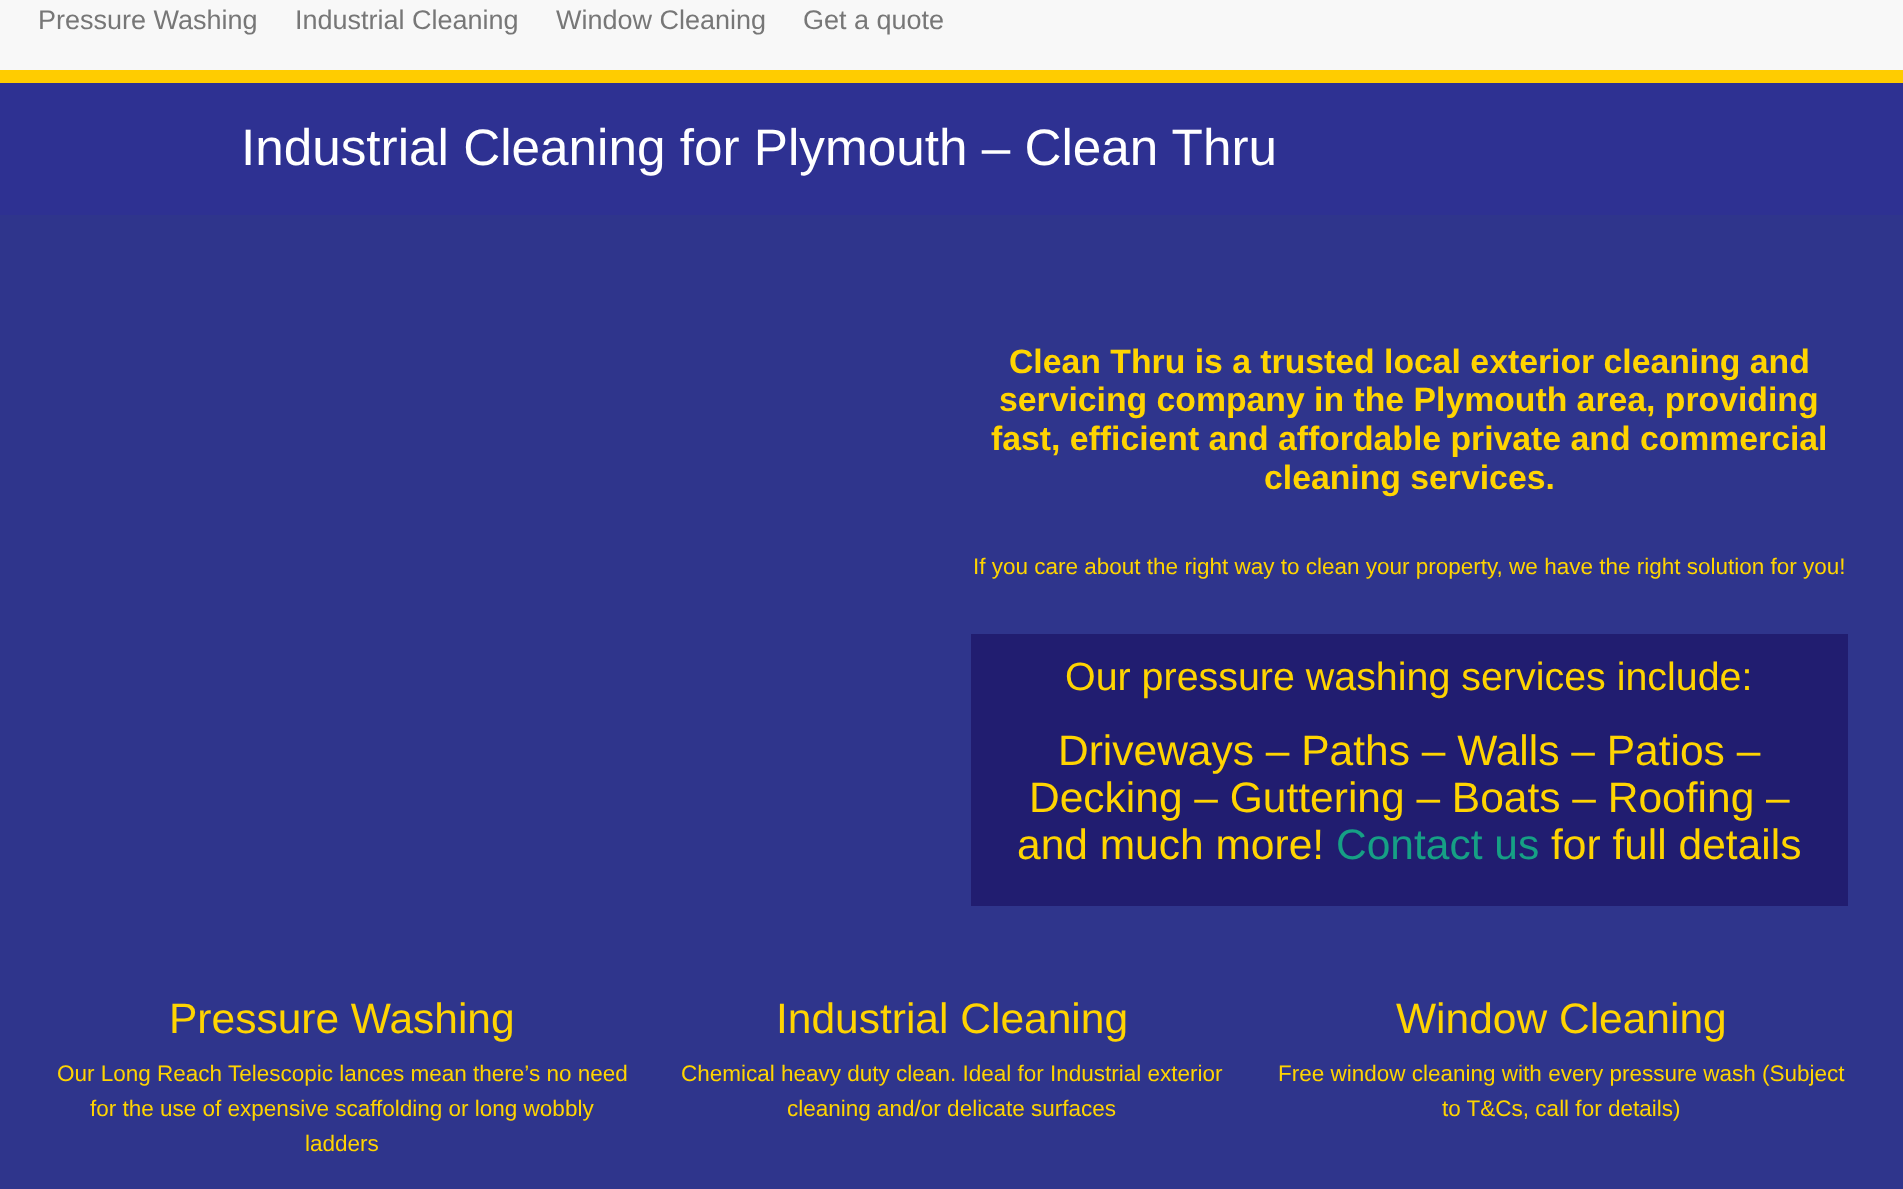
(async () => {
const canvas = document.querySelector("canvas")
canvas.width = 1903
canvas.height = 1189
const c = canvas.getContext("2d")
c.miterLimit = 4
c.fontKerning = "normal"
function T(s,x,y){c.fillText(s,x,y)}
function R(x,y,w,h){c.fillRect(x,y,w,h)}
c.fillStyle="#2f358c"
R(0,0,1903,1189)
c.fillStyle="#f8f8f8"
R(0,0,1903,70)
c.fillStyle="#fc0"
R(0,70,1903,13)
c.font="27px Liberation Sans"
c.fillStyle="#777"
T("Pressure Washing",38,29)
T("Industrial Cleaning",295,29)
T("Window Cleaning",556,29)
T("Get a quote",803,29)
c.fillStyle="#2e3192"
R(0,83,1903,132)
c.font="51.25px Liberation Sans"
c.fillStyle="#fff"
T("Industrial Cleaning for Plymouth – Clean Thru",241,165)
c.font="bold 33.75px Liberation Sans"
c.fillStyle="#ffd401"
T("Clean Thru is a trusted local exterior cleaning and",1009,373)
T("servicing company in the Plymouth area, providing",999,411)
T("fast, efficient and affordable private and commercial",991,450)
T("cleaning services.",1264,489)
c.font="22.5px Liberation Sans"
T("If you care about the right way to clean your property, we have the right solution for you!",973,574)
c.fillStyle="#211d70"
R(971,634,877,272)
c.font="39.4px Liberation Sans"
c.fillStyle="#ffd401"
T("Our pressure washing services include:",1065,690)
c.font="42.5px Liberation Sans"
T("Driveways – Paths – Walls – Patios –",1058,765)
T("Decking – Guttering – Boats – Roofing –",1029,812)
T("and much more!",1017,859)
c.fillStyle="#16a085"
T("Contact us",1336,859)
c.fillStyle="#ffd401"
T("for full details",1551,859)
T("Pressure Washing",169,1033)
c.font="22.5px Liberation Sans"
T("Our Long Reach Telescopic lances mean there’s no need",57,1081)
T("for the use of expensive scaffolding or long wobbly",90,1116)
T("ladders",305,1151)
c.font="42.5px Liberation Sans"
T("Industrial Cleaning",776,1033)
c.font="22.5px Liberation Sans"
T("Chemical heavy duty clean. Ideal for Industrial exterior",681,1081)
T("cleaning and/or delicate surfaces",787,1116)
c.font="42.5px Liberation Sans"
T("Window Cleaning",1396,1033)
c.font="22.5px Liberation Sans"
T("Free window cleaning with every pressure wash (Subject",1278,1081)
T("to T&Cs, call for details)",1442,1116)
})()
